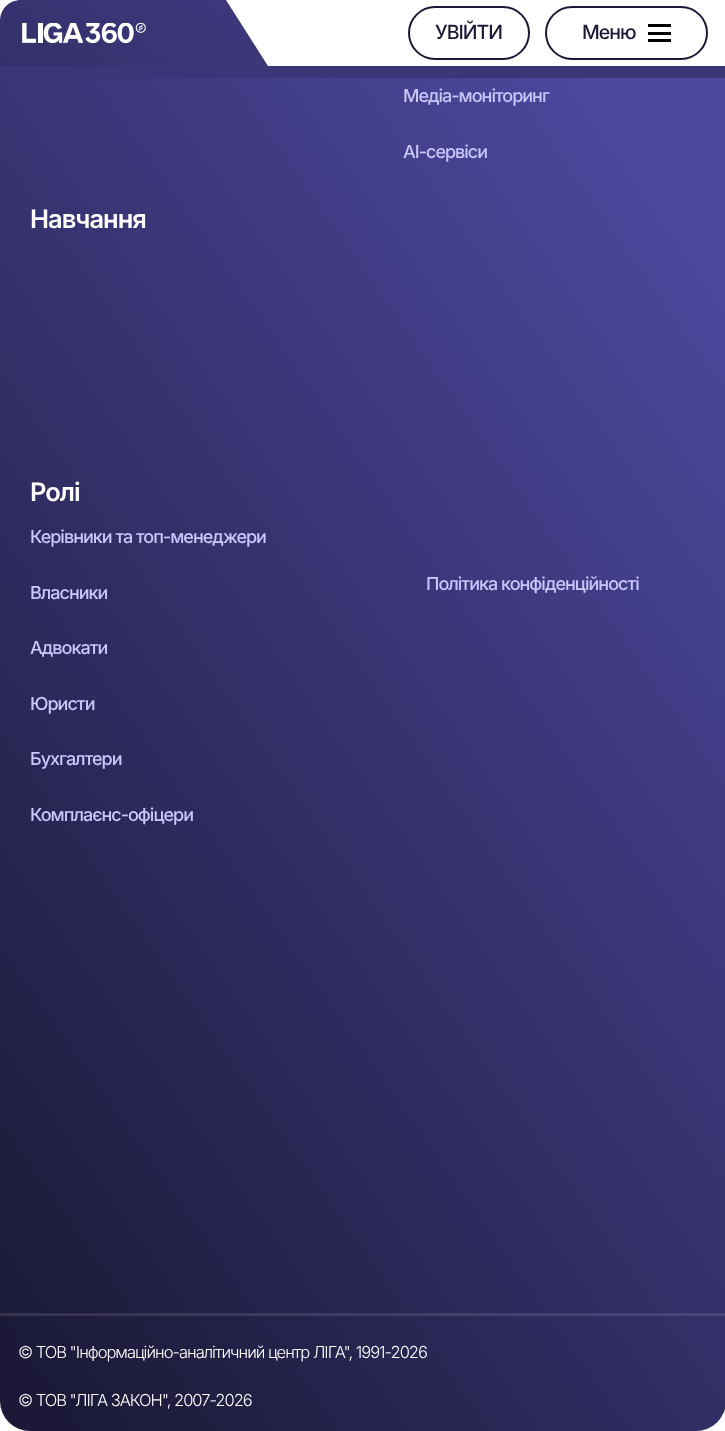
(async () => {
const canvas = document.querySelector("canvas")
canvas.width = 725
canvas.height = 1431
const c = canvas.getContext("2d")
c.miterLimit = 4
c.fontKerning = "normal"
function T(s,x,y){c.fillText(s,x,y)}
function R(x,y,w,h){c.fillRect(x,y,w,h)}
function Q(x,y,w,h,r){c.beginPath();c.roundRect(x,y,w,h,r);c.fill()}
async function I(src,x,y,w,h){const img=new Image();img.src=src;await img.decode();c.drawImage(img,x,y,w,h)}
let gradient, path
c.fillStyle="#fff"
R(0,0,725,1431)
gradient = c.createLinearGradient(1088,-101,-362,914)
gradient.addColorStop(.29,"#4d479d")
gradient.addColorStop(.97,"#1b1937")
c.fillStyle = gradient
Q(0,-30,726,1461,30)
c.fillStyle="#fff"
R(0,0,725,66)
gradient = c.createLinearGradient(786,-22,173,845)
gradient.addColorStop(0,"#4d479d")
gradient.addColorStop(1,"#1b1937")
c.fillStyle = gradient
path = new Path2D("M21 0c-12 0-21 9-21 21v45h268l-42-66z")
c.fill(path)
c.fillStyle="#3c3679"
R(0,66,725,12)
await I("1.png",22,23,124,21)
c.beginPath()
c.roundRect(409,7,120,52,26)
c.strokeStyle="#1b1937"
c.lineWidth=2
c.stroke()
c.letterSpacing="-1px"
c.font="500 19.5px Inter"
c.fillStyle="#1b1937"
T("УВІЙТИ",435,39)
c.beginPath()
c.roundRect(546,7,161,52,26)
c.stroke()
T("Меню",582,39)
c.fillStyle="#000"
R(648,32,23,3)
R(648,24,23,3)
R(648,39,23,3)
gradient = c.createLinearGradient(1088,-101,-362,914)
gradient.addColorStop(.29,"#5f5aa5")
gradient.addColorStop(.97,"#34324c")
c.fillStyle = gradient
R(0,1313,725,3)
c.font="500 18px Inter"
c.fillStyle="#cac7ff"
T("Медіа-моніторинг",403,102)
T("АІ-сервіси",403,158)
c.font="600 25.5px Inter"
c.fillStyle="#fff"
T("Навчання",30,228)
T("Ролі",30,501)
c.font="500 18px Inter"
c.fillStyle="#cac7ff"
T("Керівники та топ-менеджери",30,543)
T("Власники",30,599)
T("Адвокати",30,654)
T("Юристи",30,710)
T("Бухгалтери",30,765)
T("Комплаєнс-офіцери",30,821)
T("Політика конфіденційності",426,590)
c.save()
path = new Path2D("M18 1330.5h409.5v33.5h-409.5z")
c.clip(path)
c.font="300 16.5px Inter"
c.fillStyle="#fff"
T("© ТОВ \"Інформаційно-аналітичний центр ЛІГА\", 1991-2026",18,1358)
c.restore()
c.font="300 16.5px Inter"
c.fillStyle="#fff"
T("© ТОВ \"ЛІГА ЗАКОН\", 2007-2026",18,1406)
})()
